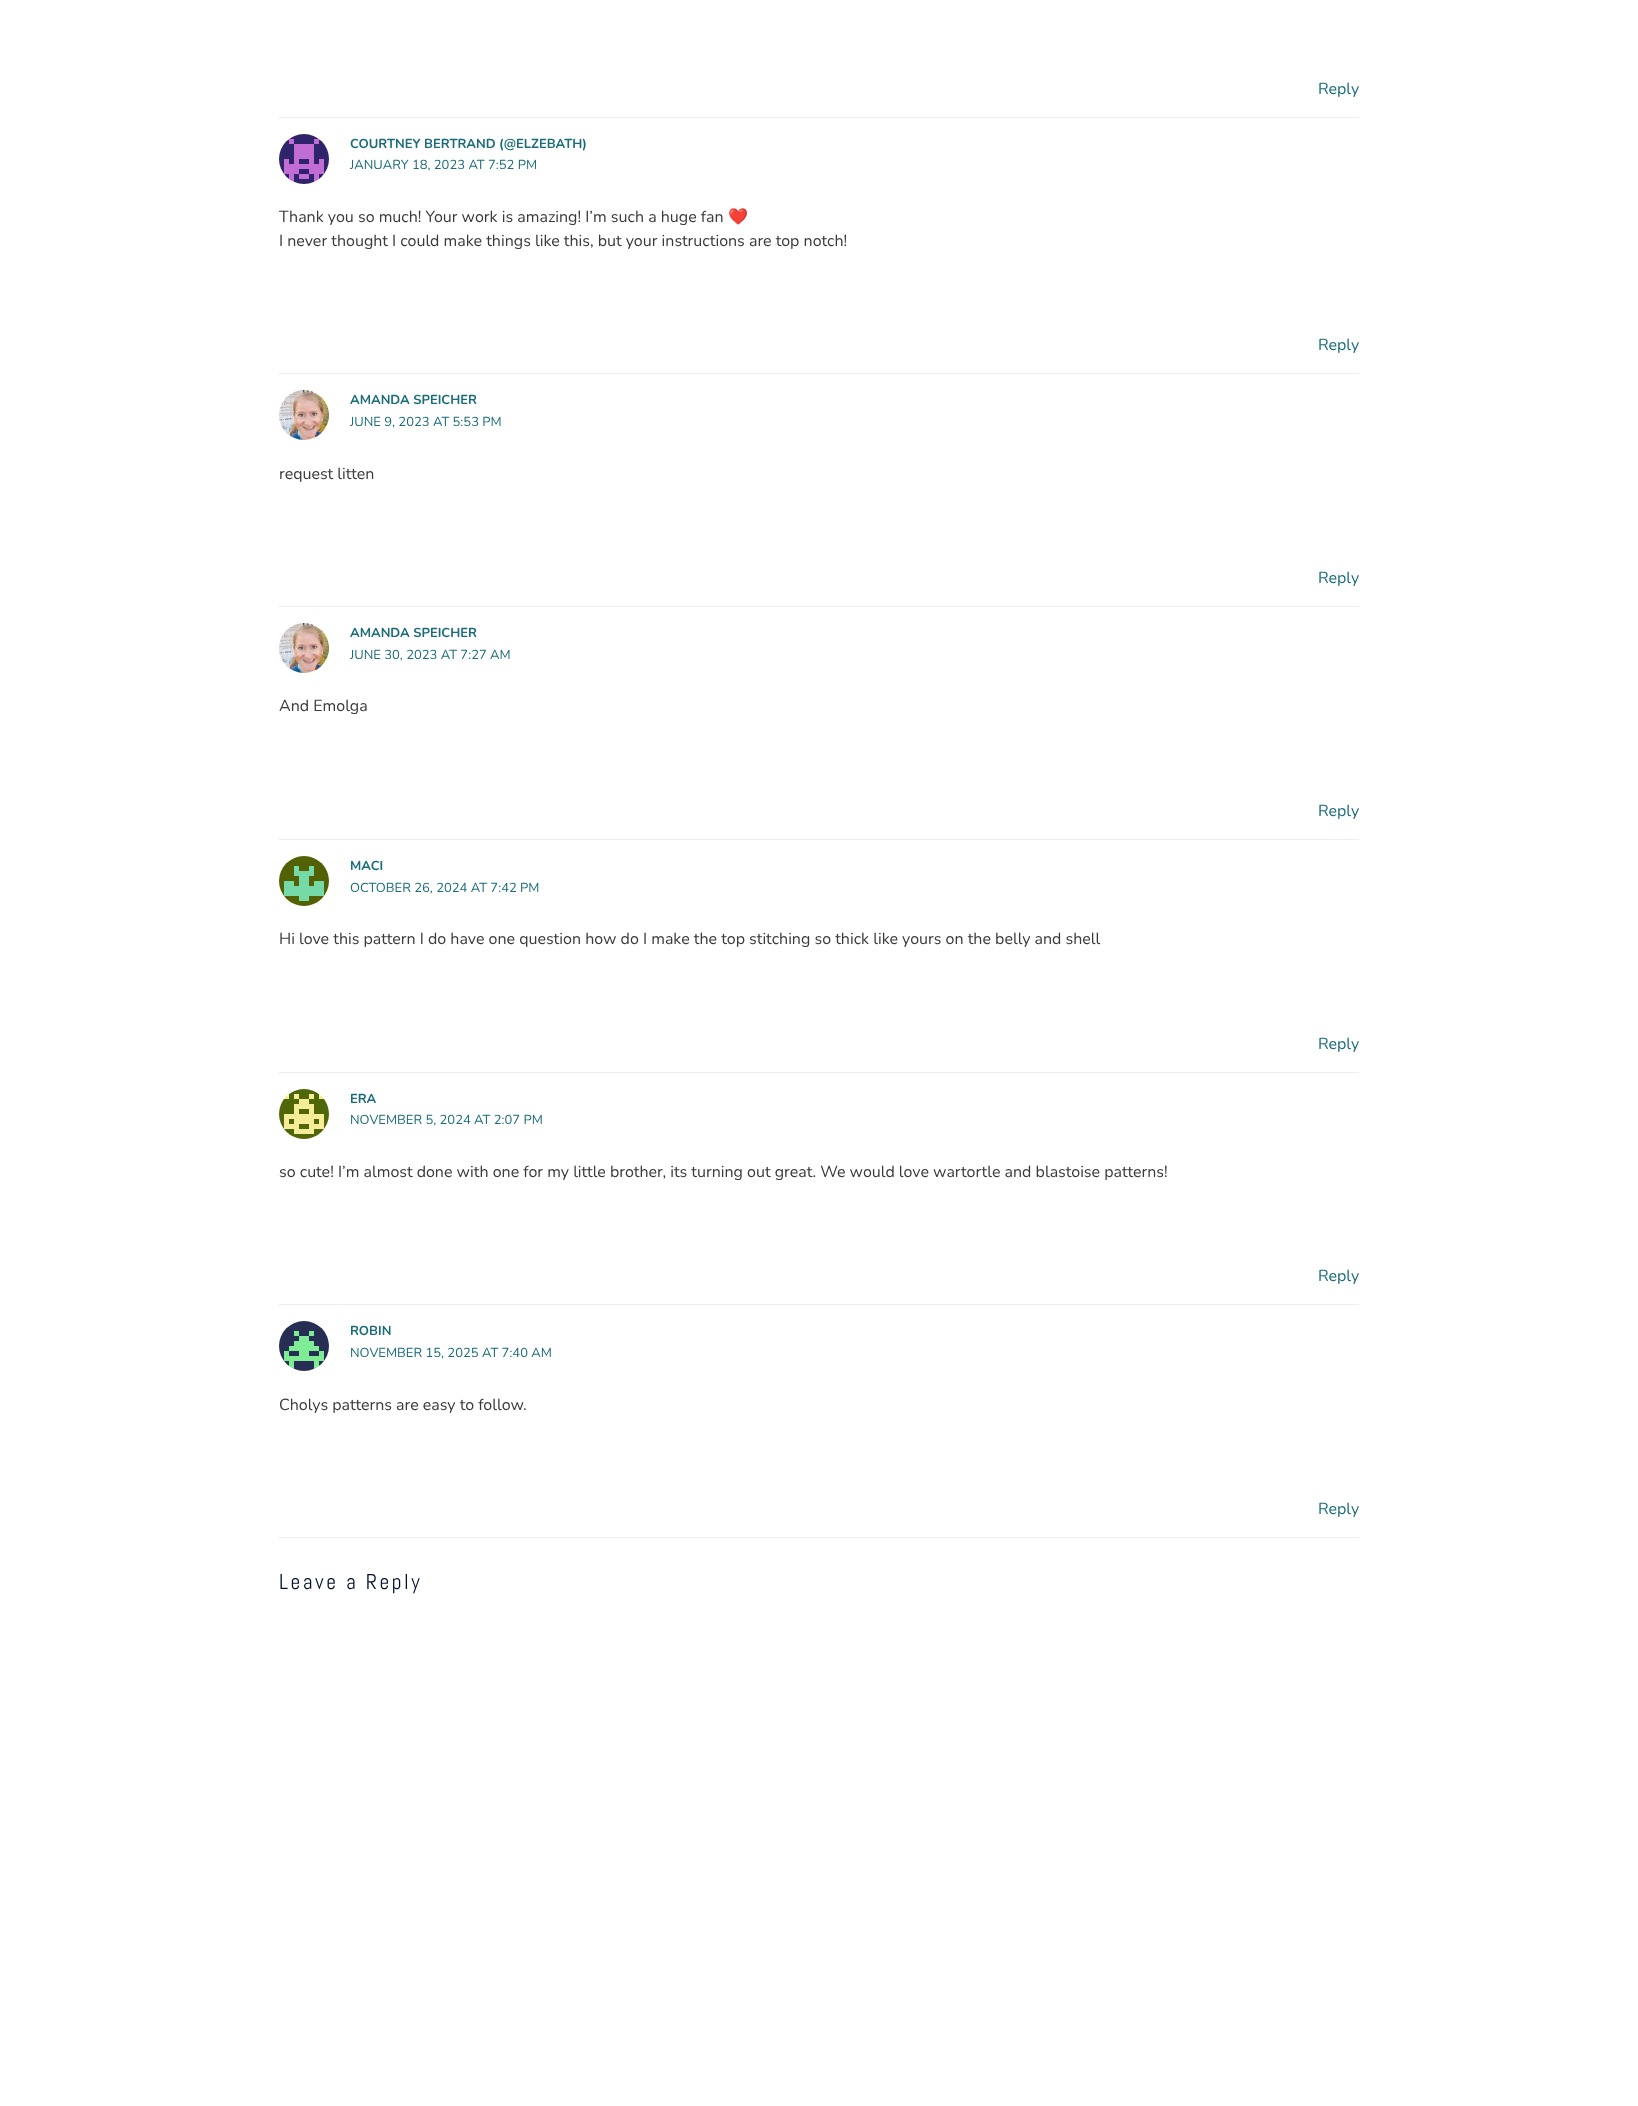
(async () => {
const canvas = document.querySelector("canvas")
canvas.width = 1638
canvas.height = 2106
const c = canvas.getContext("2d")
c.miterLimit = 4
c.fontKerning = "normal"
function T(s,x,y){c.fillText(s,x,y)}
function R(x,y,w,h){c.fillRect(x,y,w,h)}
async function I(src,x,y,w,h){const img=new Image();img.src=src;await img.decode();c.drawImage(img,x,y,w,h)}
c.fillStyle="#fff"
R(0,0,1638,2106)
c.fillStyle="#eee"
R(279,117,1080,1)
c.font="16px Nunito"
c.fillStyle="#1a6c7a"
T("Reply",1318,94)
c.fillStyle="#eee"
R(279,373,1080,1)
await I("1.png",279,134,50,50)
c.font="bold 13px Nunito"
c.fillStyle="#1a6c7a"
T("COURTNEY BERTRAND (@ELZEBATH)",350,148)
c.font="13px Nunito"
T("JANUARY 18, 2023 AT 7:52 PM",350,169)
c.font="16px Nunito"
c.fillStyle="#3a3a3a"
T("Thank you so much! Your work is amazing! I’m such a huge fan",279,222)
c.font="16px Noto Color Emoji"
T("❤️",728,222)
c.font="16px Nunito"
T("I never thought I could make things like this, but your instructions are top notch!",279,246)
c.fillStyle="#1a6c7a"
T("Reply",1318,350)
c.fillStyle="#eee"
R(279,606,1080,1)
await I("2.png",279,390,50,50)
c.font="bold 13px Nunito"
c.fillStyle="#1a6c7a"
T("AMANDA SPEICHER",350,404)
c.font="13px Nunito"
T("JUNE 9, 2023 AT 5:53 PM",350,426)
c.font="16px Nunito"
c.fillStyle="#3a3a3a"
T("request litten",279,479)
c.fillStyle="#1a6c7a"
T("Reply",1318,583)
c.fillStyle="#eee"
R(279,839,1080,1)
await I("2.png",279,623,50,50)
c.font="bold 13px Nunito"
c.fillStyle="#1a6c7a"
T("AMANDA SPEICHER",350,637)
c.font="13px Nunito"
T("JUNE 30, 2023 AT 7:27 AM",350,659)
c.font="16px Nunito"
c.fillStyle="#3a3a3a"
T("And Emolga",279,711)
c.fillStyle="#1a6c7a"
T("Reply",1318,816)
c.fillStyle="#eee"
R(279,1072,1080,1)
await I("3.png",279,856,50,50)
c.font="bold 13px Nunito"
c.fillStyle="#1a6c7a"
T("MACI",350,870)
c.font="13px Nunito"
T("OCTOBER 26, 2024 AT 7:42 PM",350,892)
c.font="16px Nunito"
c.fillStyle="#3a3a3a"
T("Hi love this pattern I do have one question how do I make the top stitching so thick like yours on the belly and shell",279,944)
c.fillStyle="#1a6c7a"
T("Reply",1318,1049)
c.fillStyle="#eee"
R(279,1304,1080,1)
await I("4.png",279,1089,50,50)
c.font="bold 13px Nunito"
c.fillStyle="#1a6c7a"
T("ERA",350,1103)
c.font="13px Nunito"
T("NOVEMBER 5, 2024 AT 2:07 PM",350,1124)
c.font="16px Nunito"
c.fillStyle="#3a3a3a"
T("so cute! I’m almost done with one for my little brother, its turning out great. We would love wartortle and blastoise patterns!",279,1177)
c.fillStyle="#1a6c7a"
T("Reply",1318,1281)
c.fillStyle="#eee"
R(279,1537,1080,1)
await I("5.png",279,1321,50,50)
c.font="bold 13px Nunito"
c.fillStyle="#1a6c7a"
T("ROBIN",350,1335)
c.font="13px Nunito"
T("NOVEMBER 15, 2025 AT 7:40 AM",350,1357)
c.font="16px Nunito"
c.fillStyle="#3a3a3a"
T("Cholys patterns are easy to follow.",279,1410)
c.fillStyle="#1a6c7a"
T("Reply",1318,1514)
c.letterSpacing="2.5px"
c.font="21.5px Abel"
c.fillStyle="#000f2b"
T("Leave a Reply",279,1589)
})()
